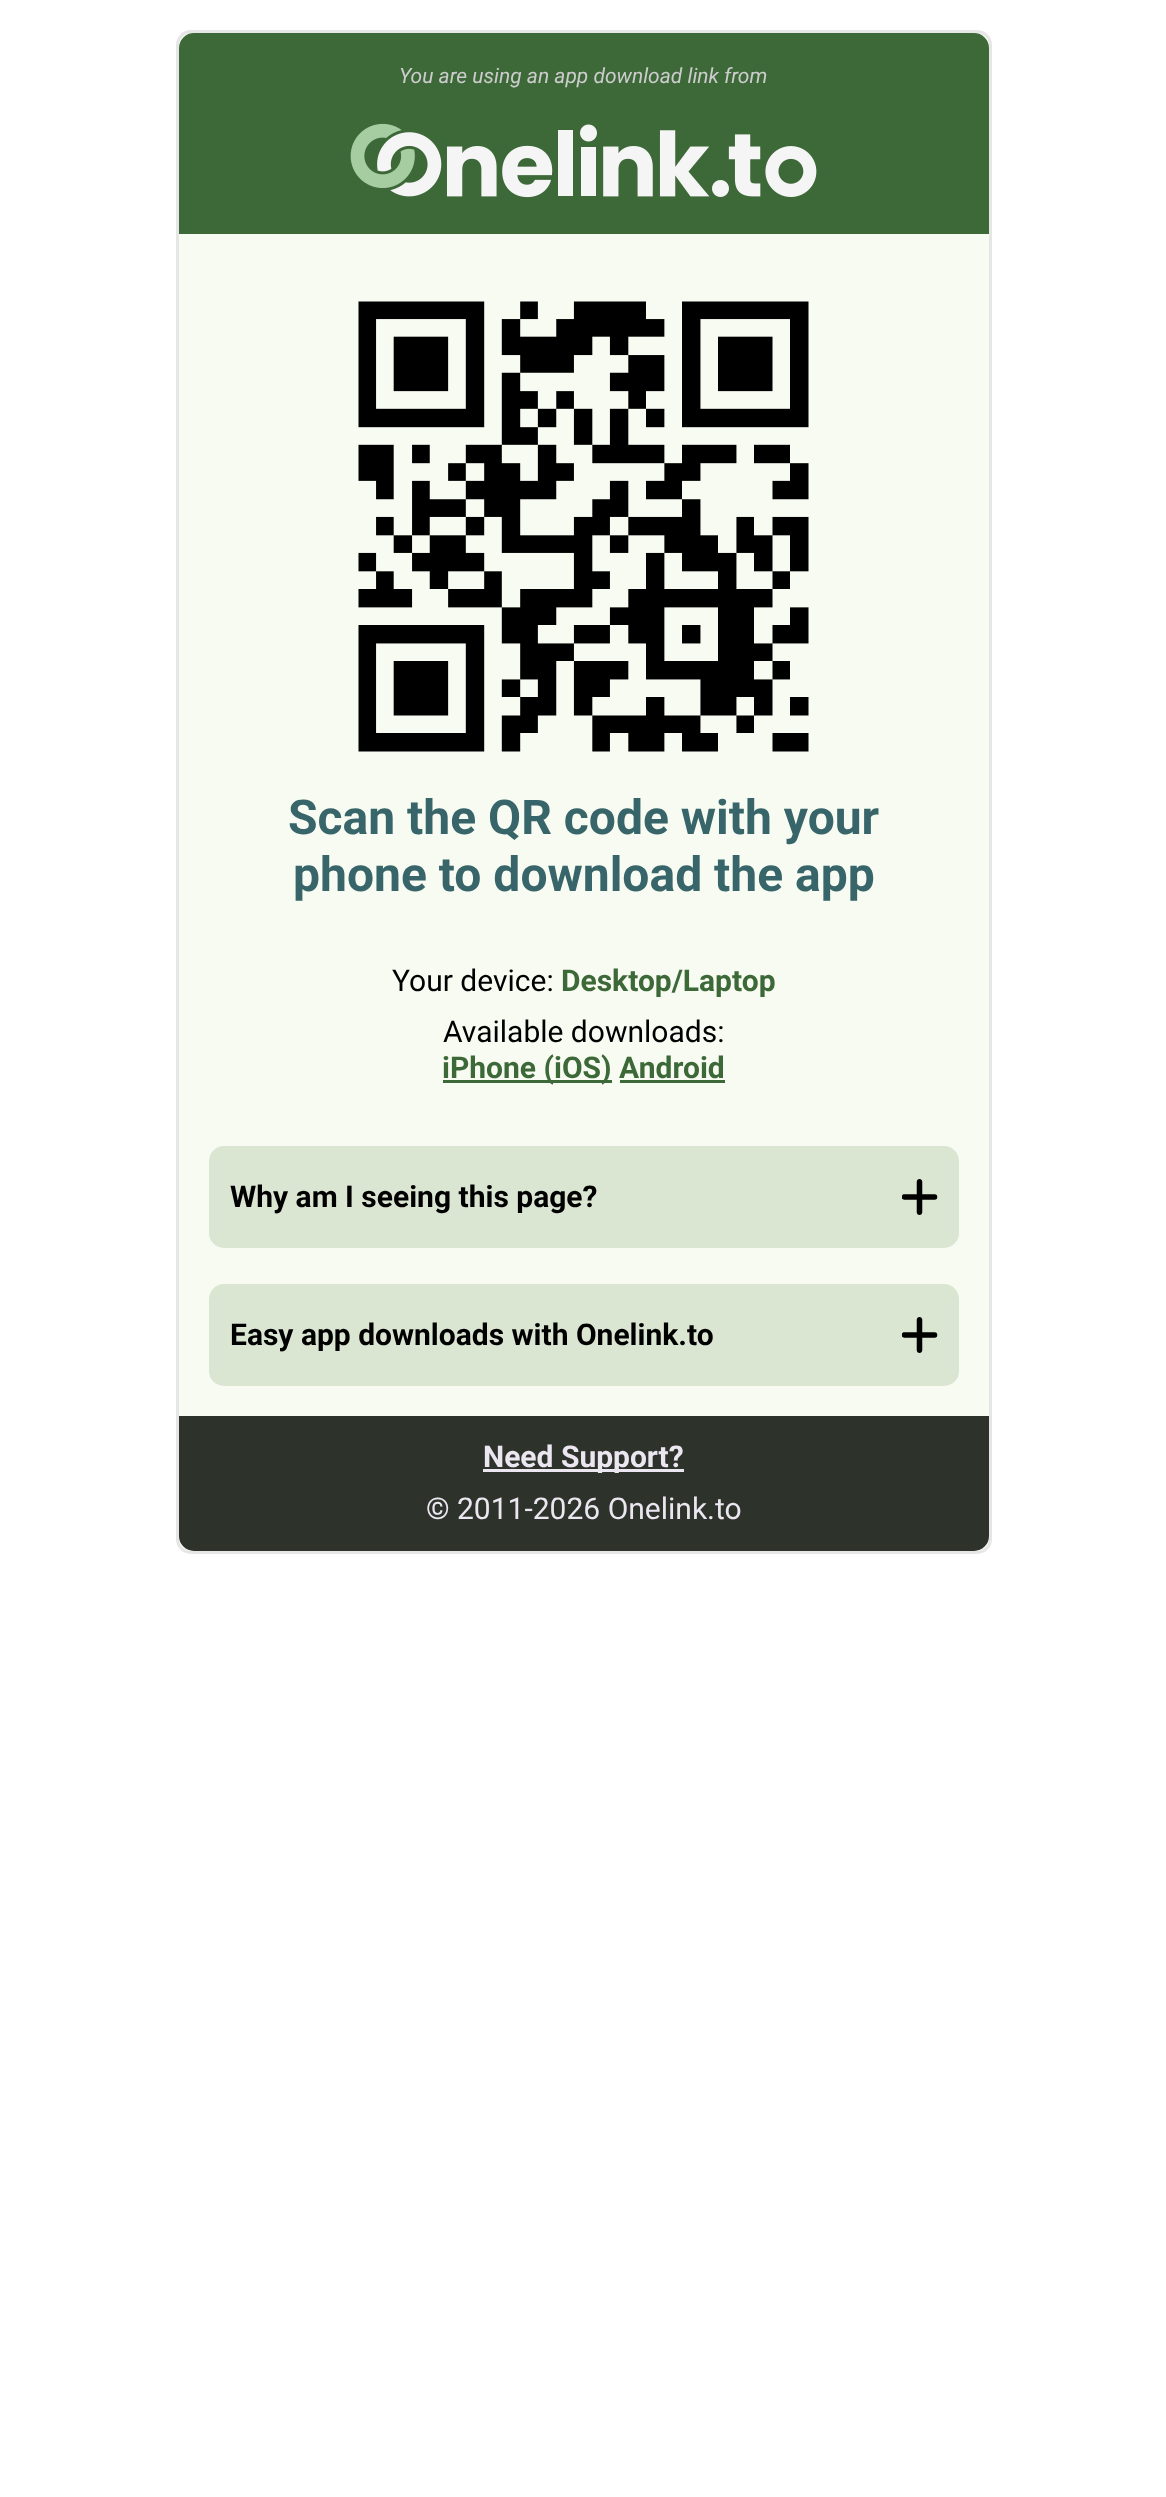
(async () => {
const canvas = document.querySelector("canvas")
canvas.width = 1166
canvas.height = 2497
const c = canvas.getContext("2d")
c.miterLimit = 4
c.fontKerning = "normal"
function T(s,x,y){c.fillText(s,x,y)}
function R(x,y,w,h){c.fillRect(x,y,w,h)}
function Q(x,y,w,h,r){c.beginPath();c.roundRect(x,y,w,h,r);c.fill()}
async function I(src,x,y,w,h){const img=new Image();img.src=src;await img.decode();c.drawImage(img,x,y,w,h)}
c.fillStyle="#fff"
R(0,0,1166,2497)
c.fillStyle="#f7fbf1"
c.beginPath()
c.roundRect(177.5,31.5,813,1521,13.5)
c.fill()
c.strokeStyle="#e6e6e6"
c.lineWidth=3
c.stroke()
c.fillStyle="#3d6838"
c.beginPath()
c.roundRect(179,33,810,201,[15,15,0,0])
c.fill()
c.font="italic 21px Roboto"
c.fillStyle="#ccc"
T("You are using an app download link from",399,83)
await I("1.png",350,123,467,75)
await I("2.png",358,301,451,451)
c.font="bold 48px Roboto"
c.fillStyle="#38656a"
T("Scan the QR code with your",288,834)
T("phone to download the app",293,891)
c.font="30px Roboto"
c.fillStyle="#000"
T("Your device:",392,991)
c.font="bold 30px Roboto"
c.fillStyle="#3d6838"
T("Desktop/Laptop",561,991)
c.font="30px Roboto"
c.fillStyle="#000"
T("Available downloads:",443,1042)
c.fillStyle="#3d6838"
R(443,1080,169,3)
c.font="bold 30px Roboto"
T("iPhone (iOS) Android",442,1078)
R(620,1080,105,3)
c.fillStyle="#dae6d2"
Q(209,1146,750,102,15)
c.fillStyle="#000"
T("Why am I seeing this page?",230,1207)
await I("3.png",902,1179,36,36)
c.fillStyle="#dae6d2"
Q(209,1284,750,102,15)
c.fillStyle="#000"
T("Easy app downloads with Onelink.to",230,1345)
await I("3.png",902,1317,36,36)
c.fillStyle="#2d322b"
c.beginPath()
c.roundRect(179,1416,810,135,[0,0,15,15])
c.fill()
c.fillStyle="#ece6f0"
R(483,1469,201,3)
T("Need Support?",483,1467)
c.font="30px Roboto"
T("© 2011-2026 Onelink.to",426,1519)
})()
